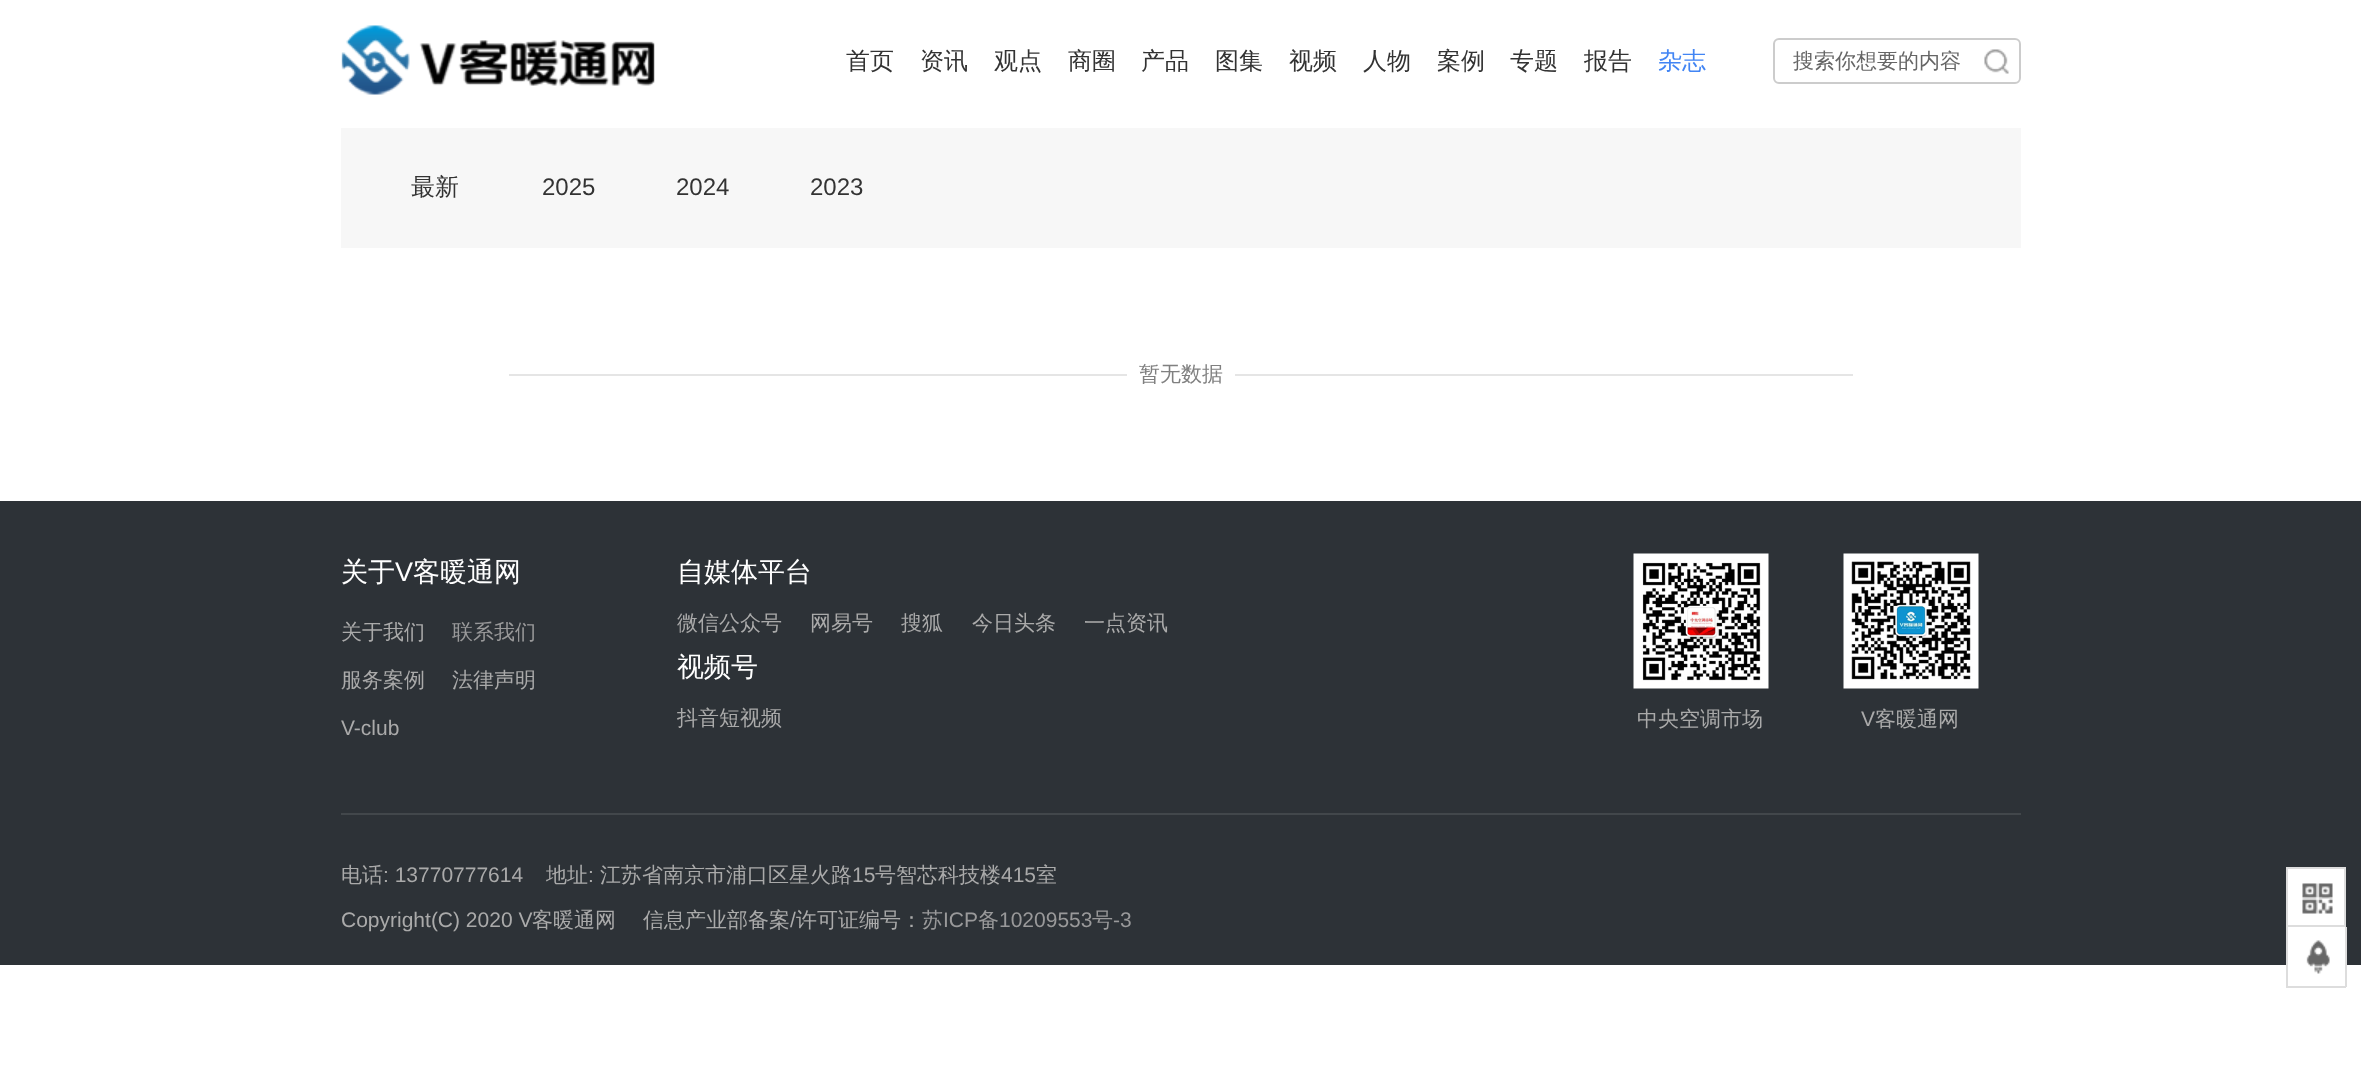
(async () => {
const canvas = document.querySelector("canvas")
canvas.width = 2361
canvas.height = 1076
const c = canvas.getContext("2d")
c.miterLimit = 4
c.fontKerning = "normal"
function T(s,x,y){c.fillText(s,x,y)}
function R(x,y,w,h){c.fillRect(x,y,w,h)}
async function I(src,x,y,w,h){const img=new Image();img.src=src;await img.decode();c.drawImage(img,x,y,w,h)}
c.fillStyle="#fff"
R(0,0,2361,1076)
await I("1.png",341,25,314,70)
c.font="500 24px WenQuanYi Zen Hei"
c.fillStyle="#333"
T("首页",846,69)
T("资讯",920,69)
T("观点",994,69)
T("商圈",1068,69)
T("产品",1141,69)
T("图集",1215,69)
T("视频",1289,69)
T("人物",1363,69)
T("案例",1437,69)
T("专题",1510,69)
T("报告",1584,69)
c.fillStyle="#4285f4"
T("杂志",1658,69)
await I("2.png",1984,49,25,25)
c.beginPath()
c.roundRect(1774,39,246,44,5)
c.strokeStyle="#ccc"
c.lineWidth=2
c.stroke()
c.font="500 21px WenQuanYi Zen Hei"
c.fillStyle="#666"
T("搜索你想要的内容",1793,68)
c.fillStyle="#f7f7f7"
R(341,128,1680,120)
c.font="500 24px WenQuanYi Zen Hei"
c.fillStyle="#333"
T("最新",411,195)
c.font="24px Liberation Sans"
T("2025",542,195)
T("2024",676,195)
T("2023",810,195)
c.fillStyle="#e5e5e5"
R(509,374,1344,2)
c.fillStyle="#fff"
R(1127,374,108,2)
c.font="500 21px WenQuanYi Zen Hei"
c.fillStyle="#808080"
T("暂无数据",1139,381)
c.fillStyle="#2d3237"
R(0,501,2361,464)
c.fillStyle="#42474b"
R(341,813,1680,2)
c.font="500 27px WenQuanYi Zen Hei"
c.fillStyle="#fff"
T("关于",341,581)
c.font="27px Liberation Sans"
T("V",395,581)
c.font="500 27px WenQuanYi Zen Hei"
T("客暖通网",413,581)
c.font="500 21px WenQuanYi Zen Hei"
c.fillStyle="#aaa"
T("关于我们",341,639)
c.fillStyle="#99999a"
T("联系我们",452,639)
c.fillStyle="#aaa"
T("服务案例",341,687)
T("法律声明",452,687)
c.font="21px Liberation Sans"
T("V-club",341,735)
c.font="500 27px WenQuanYi Zen Hei"
c.fillStyle="#fff"
T("自媒体平台",677,581)
c.font="500 21px WenQuanYi Zen Hei"
c.fillStyle="#aaa"
T("微信公众号",677,630)
T("网易号",810,630)
T("搜狐",901,630)
T("今日头条",972,630)
T("一点资讯",1084,630)
c.font="500 27px WenQuanYi Zen Hei"
c.fillStyle="#fff"
T("视频号",677,676)
c.font="500 21px WenQuanYi Zen Hei"
c.fillStyle="#aaa"
T("抖音短视频",677,725)
await I("3.png",1633,553,136,136)
T("中央空调市场",1637,726)
await I("4.png",1843,553,136,136)
c.font="21px Liberation Sans"
T("V",1861,726)
c.font="500 21px WenQuanYi Zen Hei"
T("客暖通网",1875,726)
T("电话",341,882)
c.font="21px Liberation Sans"
T(": 13770777614",383,882)
c.font="500 21px WenQuanYi Zen Hei"
T("地址",546,882)
c.font="21px Liberation Sans"
T(":",588,882)
c.font="500 21px WenQuanYi Zen Hei"
T("江苏省南京市浦口区星火路",600,882)
c.font="21px Liberation Sans"
T("15",852,882)
c.font="500 21px WenQuanYi Zen Hei"
T("号智芯科技楼",875,882)
c.font="21px Liberation Sans"
T("415",1001,882)
c.font="500 21px WenQuanYi Zen Hei"
T("室",1036,882)
c.font="21px Liberation Sans"
T("Copyright(C) 2020 V",341,927)
c.font="500 21px WenQuanYi Zen Hei"
T("客暖通网",532,927)
T("信息产业部备案",643,927)
c.font="21px Liberation Sans"
T("/",790,927)
c.font="500 21px WenQuanYi Zen Hei"
T("许可证编号：",796,927)
c.fillStyle="#99999a"
T("苏",922,927)
c.font="21px Liberation Sans"
T("ICP",943,927)
c.font="500 21px WenQuanYi Zen Hei"
T("备",978,927)
c.font="21px Liberation Sans"
T("10209553",999,927)
c.font="500 21px WenQuanYi Zen Hei"
T("号",1092,927)
c.font="21px Liberation Sans"
T("-3",1113,927)
c.fillStyle="#fff"
c.beginPath()
c.rect(2287,868,58,58)
c.fill()
c.strokeStyle="#ddd"
c.stroke()
await I("5.png",2302,883,31,31)
R(2288,927,57,38)
c.fillStyle="#ddd"
R(2345,927,2,60)
R(2286,986,60,2)
R(2286,927,2,60)
await I("6.png",2306,940,24,34)
})()
